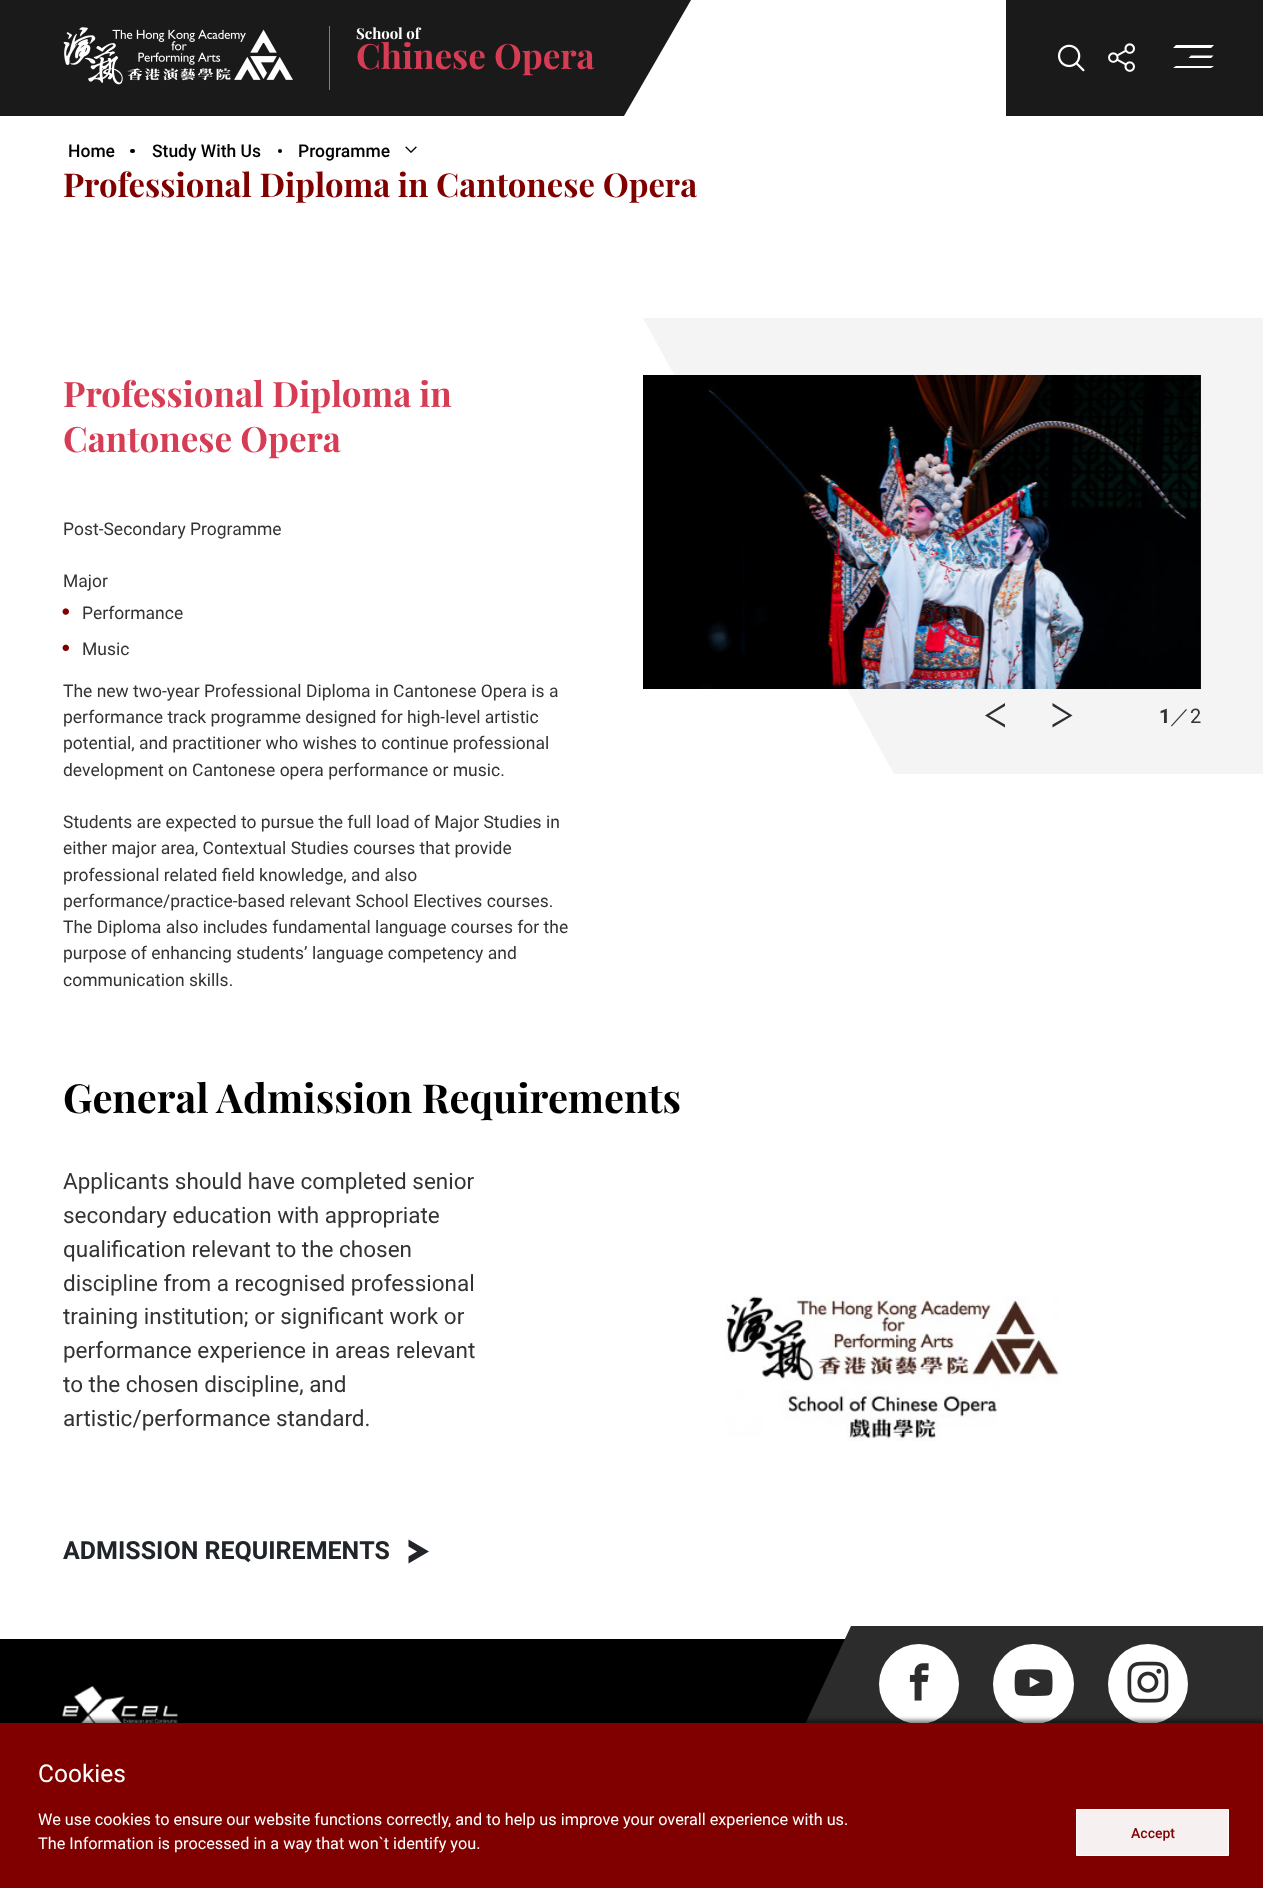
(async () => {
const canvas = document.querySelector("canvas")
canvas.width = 1263
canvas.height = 1888
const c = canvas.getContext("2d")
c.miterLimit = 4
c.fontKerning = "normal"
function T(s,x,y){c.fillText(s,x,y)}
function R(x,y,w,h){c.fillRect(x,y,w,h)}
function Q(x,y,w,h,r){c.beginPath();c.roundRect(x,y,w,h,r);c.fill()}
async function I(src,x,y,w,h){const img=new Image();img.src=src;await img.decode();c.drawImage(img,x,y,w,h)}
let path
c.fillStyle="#fff"
R(0,0,1263,1888)
c.fillStyle="#1a1a1a"
path = new Path2D("M-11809 0h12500l-67 116h-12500z")
c.fill(path)
await I("1.png",63,27,230,58)
c.fillStyle="#808080"
R(329,26,1,64)
c.font="bold 15px Playfair Display"
c.fillStyle="#fff"
T("School of",356,39)
c.font="bold 35px Playfair Display"
c.fillStyle="#d63d55"
T("Chinese Opera",356,69)
c.fillStyle="#1a1a1a"
R(1006,0,257,116)
await I("2.png",1057,44,28,28)
await I("3.png",1108,43,27,29)
c.fillStyle="#fff"
path = new Path2D("M1176 45l-3 3h38l3-3zm15 10.5l-2.5 2.5h22.5l2.5-2.5zm-15 10.5l-3 2h38l3-2z")
c.fill(path)
c.fillStyle="#000"
R(0,1639,845,84)
await I("9.png",62,1686,116,37)
c.fillStyle="#2c2c2c"
path = new Path2D("M851 1626h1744l-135 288h-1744z")
c.fill(path)
c.fillStyle="#fff"
c.beginPath()
c.arc(919,1684,40,0,7)
c.fill()
Q(993,1644,81,80,40)
c.beginPath()
c.arc(1148,1684,40,0,7)
c.fill()
c.fillStyle="#00000080"
c.filter="blur(2px)"
c.beginPath()
c.rect(0,1720,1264,166)
c.fill()
c.filter="none"
c.fillStyle="#800000"
R(0,1723,1263,165)
c.font="24.5px Roboto"
c.fillStyle="#fff"
T("Cookies",38,1782)
c.font="16.25px Roboto"
T("We use cookies to ensure our website functions correctly, and to help us improve your overall experience with us.",38,1825)
T("The Information is processed in a way that won`t identify you.",38,1849)
c.fillStyle="#f7f0f0"
c.beginPath()
c.rect(1076.5,1809.5,152,46)
c.fill()
c.strokeStyle="#fffefe"
c.stroke()
c.font="500 14px Roboto"
c.fillStyle="#800000"
T("Accept",1131,1838)
c.font="500 17.5px Roboto"
c.fillStyle="#000"
T("Home",68,157)
Q(130,149,5,4,2)
T("Study With Us",152,157)
c.beginPath()
c.arc(280,151,2,0,7)
c.fill()
T("Programme",298,157)
await I("4.png",405,146,12,7)
c.font="bold 32.9px Playfair Display"
c.fillStyle="#800000"
T("Professional Diploma in Cantonese Opera",63,197)
c.font="bold 35px Playfair Display"
c.fillStyle="#d63d55"
T("Professional Diploma in",63,407)
T("Cantonese Opera",63,452)
c.font="17.5px Roboto"
c.fillStyle="#333"
T("Post-Secondary Programme",63,535)
T("Major",63,587)
await I("5.png",62,608,7,7)
T("Performance",82,619)
await I("6.png",62,644,7,8)
T("Music",82,655)
T("The new two-year Professional Diploma in Cantonese Opera is a",63,697)
T("performance track programme designed for high-level artistic",63,723)
T("potential, and practitioner who wishes to continue professional",63,749)
T("development on Cantonese opera performance or music.",63,776)
T("Students are expected to pursue the full load of Major Studies in",63,828)
T("either major area, Contextual Studies courses that provide",63,854)
T("professional related field knowledge, and also",63,881)
T("performance/practice-based relevant School Electives courses.",63,907)
T("The Diploma also includes fundamental language courses for the",63,933)
T("purpose of enhancing students’ language competency and",63,959)
T("communication skills.",63,986)
c.fillStyle="#f4f4f4"
path = new Path2D("M894 774l-251-456h558v456z")
c.fill(path)
R(1201,318,62,456)
await I("7.png",643,375,558,314)
c.fillStyle="#2c2f33"
path = new Path2D("M985 715.5l20-12.5v3l-16 9.5l16 9v3z")
c.fill(path)
path = new Path2D("M1072.5 715.5l-20-12.5v3l16 9.5l-16 9v3z")
c.fill(path)
c.font="bold 20px Heebo"
c.fillStyle="#333"
T("1",1159,723)
c.font="500 20px WenQuanYi Zen Hei"
T("／",1170,723)
c.font="20px Heebo"
T("2",1190,723)
c.font="bold 40px Playfair Display"
c.fillStyle="#000"
T("General Admission Requirements",63,1113)
c.font="22.5px Roboto"
c.fillStyle="#333"
T("Applicants should have completed senior",63,1189)
T("secondary education with appropriate",63,1223)
T("qualification relevant to the chosen",63,1257)
T("discipline from a recognised professional",63,1291)
T("training institution; or significant work or",63,1324)
T("performance experience in areas relevant",63,1358)
T("to the chosen discipline, and",63,1392)
T("artistic/performance standard.",63,1426)
c.font="bold 25px Heebo"
c.fillStyle="#212529"
T("ADMISSION REQUIREMENTS",63,1559)
path = new Path2D("M429 1551.5l-20.5-12v7l8.5 5l-8.5 5v7z")
c.fill(path)
await I("8.png",725,1295,335,146)
await I("10.png",909,1663,20,38)
await I("11.png",1014,1669,39,27)
await I("12.png",1127,1661,42,42)
})()
